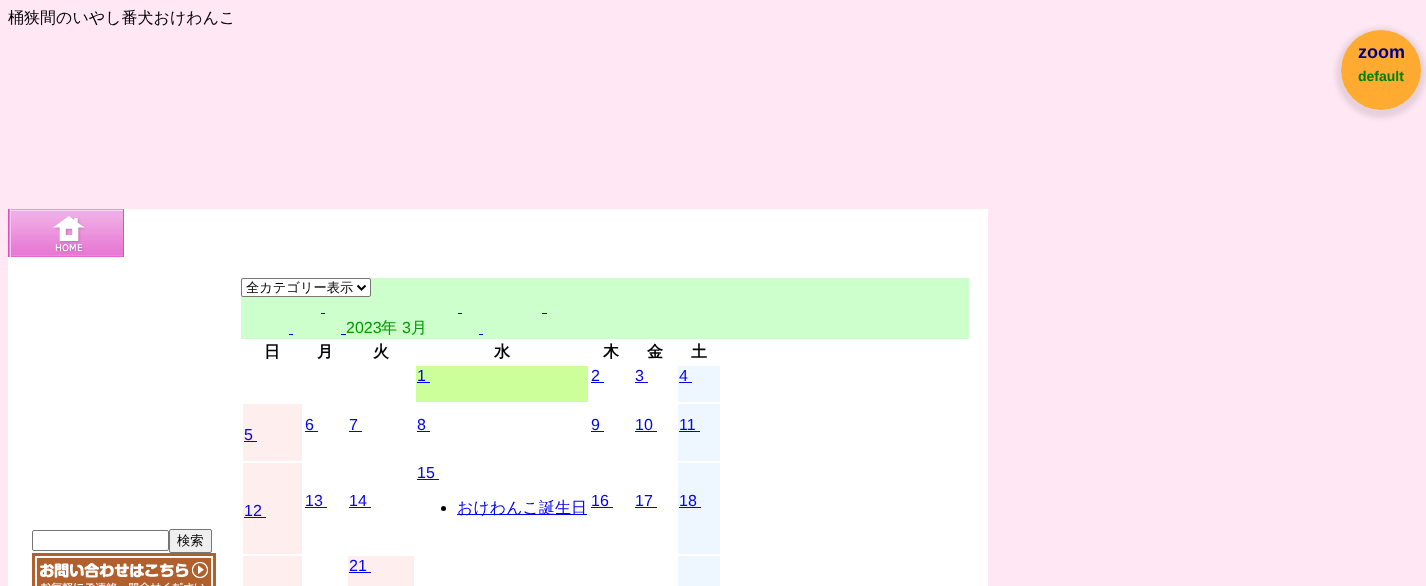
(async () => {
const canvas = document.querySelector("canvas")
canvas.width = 1426
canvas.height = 586
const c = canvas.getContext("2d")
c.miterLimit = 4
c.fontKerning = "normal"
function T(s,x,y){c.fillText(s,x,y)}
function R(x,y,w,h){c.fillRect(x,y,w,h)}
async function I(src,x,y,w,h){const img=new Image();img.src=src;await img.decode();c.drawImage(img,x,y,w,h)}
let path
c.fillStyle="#ffe8f4"
R(0,0,1426,586)
c.font="500 16px WenQuanYi Zen Hei"
c.fillStyle="#000"
T("桶狭間のいやし番犬おけわんこ",8,23)
c.fillStyle="#fff"
R(8,209,980,68)
await I("1.png",8,209,116,48)
R(8,277,24,309)
R(216,277,772,309)
R(32,277,184,276)
c.beginPath()
c.roundRect(32.5,530.5,136,20,1.5)
c.strokeStyle="#767676"
c.stroke()
c.fillStyle="#efefef"
c.beginPath()
c.roundRect(169.5,529.5,42,23,1.5)
c.fill()
c.stroke()
c.font="500 13.25px WenQuanYi Zen Hei"
c.fillStyle="#000"
T("検索",177,545)
await I("2.png",32,553,184,33)
c.fillStyle="#cfc"
R(241,278,728,61)
c.fillStyle="#fff"
c.beginPath()
c.roundRect(241.5,278.5,129,18,1.5)
c.fill()
c.stroke()
path = new Path2D("M357.5 285.5l4 4l4-4")
c.strokeStyle="#000"
c.lineWidth=2
c.stroke(path)
c.fillStyle="#000"
T("全カテゴリー表示",246,292)
c.fillStyle="#00e"
R(321,313,4,1)
R(458,313,4,1)
R(542,313,5,1)
c.font="16px Liberation Sans"
c.fillStyle="#090"
T("2023",346,333)
c.font="500 16px WenQuanYi Zen Hei"
T("年",381,333)
c.font="16px Liberation Sans"
T("3",402,333)
c.font="500 16px WenQuanYi Zen Hei"
T("月",411,333)
c.fillStyle="#00e"
R(289,334,4,1)
R(341,334,5,1)
R(479,334,4,1)
c.font="bold 16px WenQuanYi Zen Hei"
c.fillStyle="#000"
T("日",264,357)
T("月",317,357)
T("火",373,357)
T("水",494,357)
T("木",603,357)
T("金",647,357)
T("土",691,357)
c.fillStyle="#cf9"
R(416,366,172,36)
c.font="16px Liberation Sans"
c.fillStyle="#00e"
T("1",417,381)
R(417,382,13,1)
T("2",591,381)
R(591,382,13,1)
T("3",635,381)
R(635,382,13,1)
c.fillStyle="#eef7ff"
R(678,366,42,36)
c.fillStyle="#00e"
T("4",679,381)
R(679,382,13,1)
T("6",305,430)
R(305,431,13,1)
T("7",349,430)
R(349,431,13,1)
T("8",417,430)
R(417,431,13,1)
T("9",591,430)
R(591,431,13,1)
T("10",635,430)
R(635,431,22,1)
c.fillStyle="#eef7ff"
R(678,404,42,57)
c.fillStyle="#00e"
T("11",679,430)
R(679,431,21,1)
c.fillStyle="#fee"
R(243,404,59,57)
c.fillStyle="#00e"
T("5",244,440)
R(244,441,13,1)
T("13",305,506)
R(305,507,22,1)
T("14",349,506)
R(349,507,22,1)
T("15",417,478)
R(417,479,22,1)
c.fillStyle="#000"
c.beginPath()
c.arc(443.5,508.5,2.5,0,7)
c.fill()
c.fillStyle="#00e"
R(457,514,130,1)
c.font="500 16px WenQuanYi Zen Hei"
T("おけわんこ誕生日",457,513)
c.font="16px Liberation Sans"
T("16",591,506)
R(591,507,22,1)
T("17",635,506)
R(635,507,22,1)
c.fillStyle="#eef7ff"
R(678,463,42,91)
c.fillStyle="#00e"
T("18",679,506)
R(679,507,22,1)
c.fillStyle="#fee"
R(243,463,59,91)
c.fillStyle="#00e"
T("12",244,516)
R(244,517,22,1)
c.fillStyle="#fee"
R(243,556,59,30)
R(348,556,66,30)
c.fillStyle="#00e"
T("21",349,571)
R(349,572,22,1)
c.fillStyle="#eef7ff"
R(678,556,42,30)
c.save()
path = new Path2D("M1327 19h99v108h-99zm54 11c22 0 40 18 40 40c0 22-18 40-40 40c-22 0-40-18-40-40c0-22 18-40 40-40z")
c.clip(path,"evenodd")
c.fillStyle="#0000001a"
c.filter="blur(2.5px)"
c.beginPath()
c.roundRect(1336,28,90,90,45)
c.fill()
c.filter="none"
c.restore()
c.fillStyle="#ff9b00cc"
c.beginPath()
c.arc(1381,70,40,0,7)
c.fill()
c.font="bold 18px Liberation Sans"
c.fillStyle="#000080"
T("zoom",1358,58)
c.font="bold 14px Liberation Sans"
c.fillStyle="#008000"
T("default",1358,81)
})()
